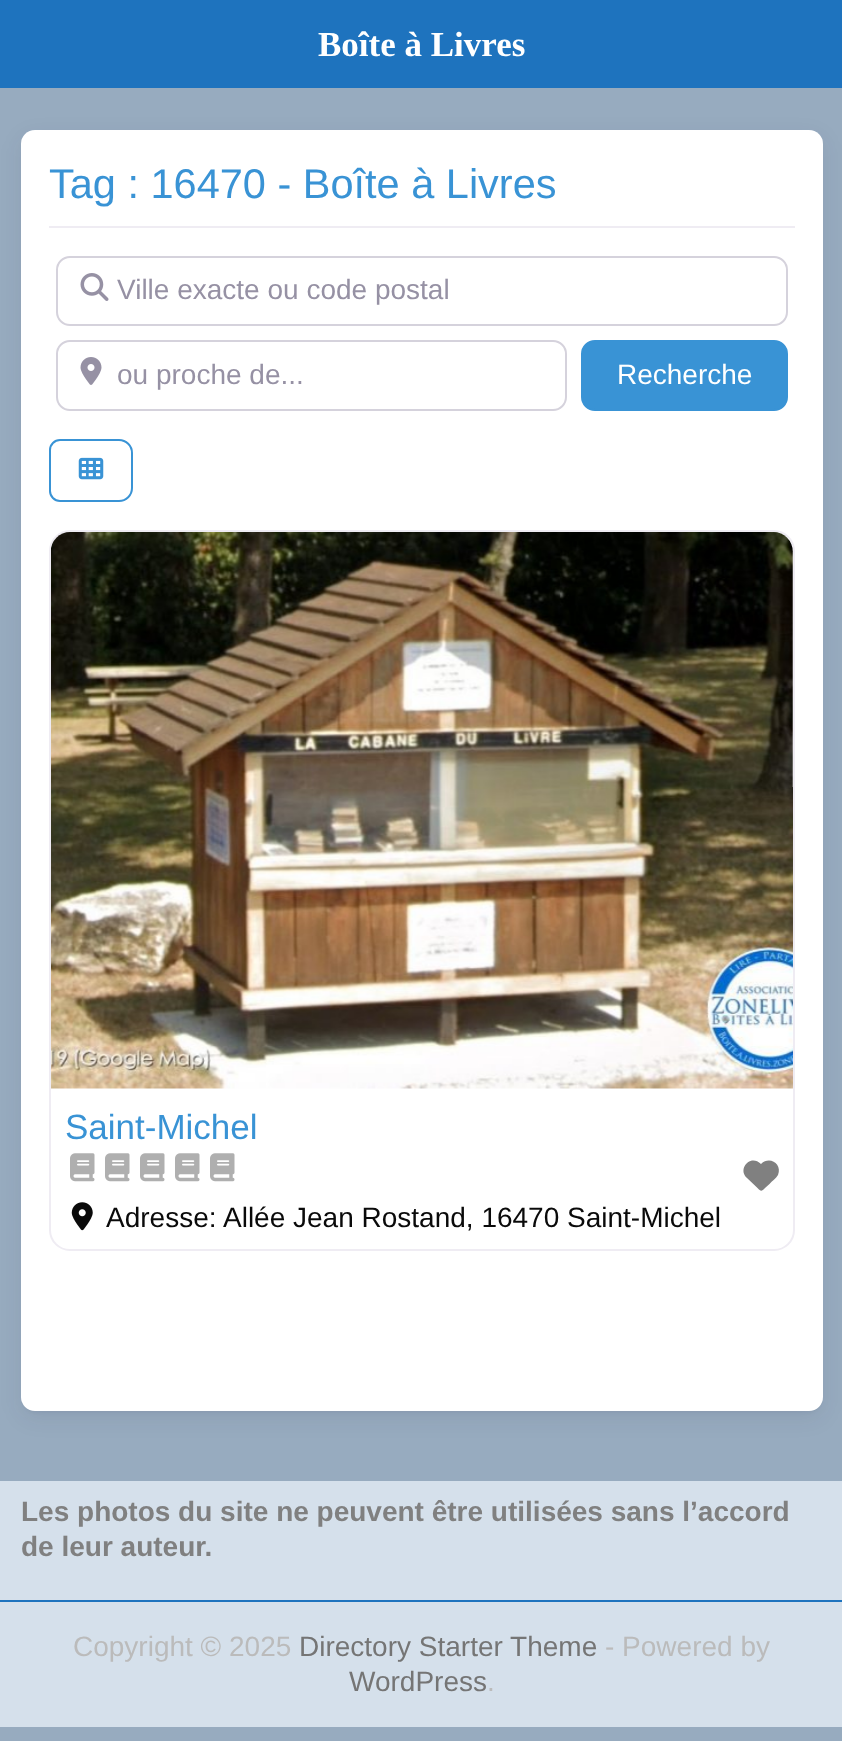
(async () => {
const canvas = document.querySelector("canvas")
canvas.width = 842
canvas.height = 1741
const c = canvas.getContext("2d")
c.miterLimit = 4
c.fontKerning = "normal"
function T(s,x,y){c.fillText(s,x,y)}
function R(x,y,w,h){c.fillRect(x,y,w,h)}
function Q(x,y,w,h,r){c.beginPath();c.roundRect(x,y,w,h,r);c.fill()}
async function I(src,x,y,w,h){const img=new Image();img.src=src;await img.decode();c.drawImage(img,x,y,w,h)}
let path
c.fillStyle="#97abbf"
R(0,0,842,1741)
c.fillStyle="#1e73be"
R(0,0,842,88)
c.font="bold 35px Liberation Serif"
c.fillStyle="#fff"
T("Boîte à Livres",318,56)
c.fillStyle="#1f1b2d14"
c.filter="blur(10.5px)"
c.beginPath()
c.roundRect(21,137,802,1281,14)
c.fill()
c.filter="none"
c.filter="blur(2px)"
c.beginPath()
c.roundRect(25,137,794,1274,11)
c.fill()
c.filter="none"
c.fillStyle="#fff"
Q(21,130,802,1281,14)
c.fillStyle="#efecf3"
R(49,226,746,2)
c.font="41.5px Liberation Sans"
c.fillStyle="#3993d5"
T("Tag : 16470 - Boîte à Livres",49,198)
c.beginPath()
c.roundRect(57,257,730,68,13)
c.strokeStyle="#d5d2dc"
c.lineWidth=2
c.stroke()
await I("1.png",80,273,29,28)
c.font="28px Liberation Sans"
c.fillStyle="#9691a4"
T("Ville exacte ou code postal",117,299)
c.beginPath()
c.roundRect(57,341,509,69,13)
c.stroke()
await I("2.png",80,357,22,28)
T("ou proche de...",117,384)
c.fillStyle="#3993d5"
c.beginPath()
c.roundRect(582,341,205,69,13)
c.fill()
c.strokeStyle="#3993d5"
c.stroke()
c.fillStyle="#fff"
T("Recherche",617,384)
c.beginPath()
c.roundRect(50,440,82,61,[10,13,13,10])
c.stroke()
await I("3.png",78,457,26,23)
c.beginPath()
c.roundRect(50,531,744,719,20)
c.strokeStyle="#efecf3"
c.stroke()
await I("4.png",51,532,742,557)
c.font="35px Liberation Sans"
c.fillStyle="#3993d5"
T("Saint-Michel",65,1139)
await I("5.png",70,1153,25,29)
await I("5.png",105,1153,25,29)
await I("5.png",140,1153,25,29)
await I("5.png",175,1153,25,29)
await I("5.png",210,1153,25,29)
c.fillStyle="#808080"
path = new Path2D("M747 1178l12.5 11.5l-12.5-11.5l10.5 10c3.5 3.5 4 3.5 7.5 0l4.5-4c2.5-3 6.5-5.5 8.5-9c4.5-10.5-8-19.5-17-11c-10.5-10.5-24 5-14 14z")
c.fill(path)
await I("6.png",71,1202,22,29)
c.font="28px Liberation Sans"
c.fillStyle="#0a0a0a"
T("Adresse:",106,1227)
T("Allée Jean Rostand, 16470 Saint-Michel",223,1227)
c.fillStyle="#d5e0eb"
R(0,1481,842,119)
c.font="bold 28px Liberation Sans"
c.fillStyle="#808080"
T("Les photos du site ne peuvent être utilisées sans l’accord",21,1521)
T("de leur auteur.",21,1556)
c.fillStyle="#d5e0eb"
R(0,1602,842,125)
c.fillStyle="#1e73be"
R(0,1600,842,2)
c.font="28px Liberation Sans"
c.fillStyle="#bbb"
T("Copyright © 2025",73,1656)
c.fillStyle="#757575"
T("Directory Starter Theme",299,1656)
c.fillStyle="#bbb"
T("- Powered by",605,1656)
c.fillStyle="#757575"
T("WordPress",349,1691)
c.fillStyle="#bbb"
T(".",487,1691)
})()
